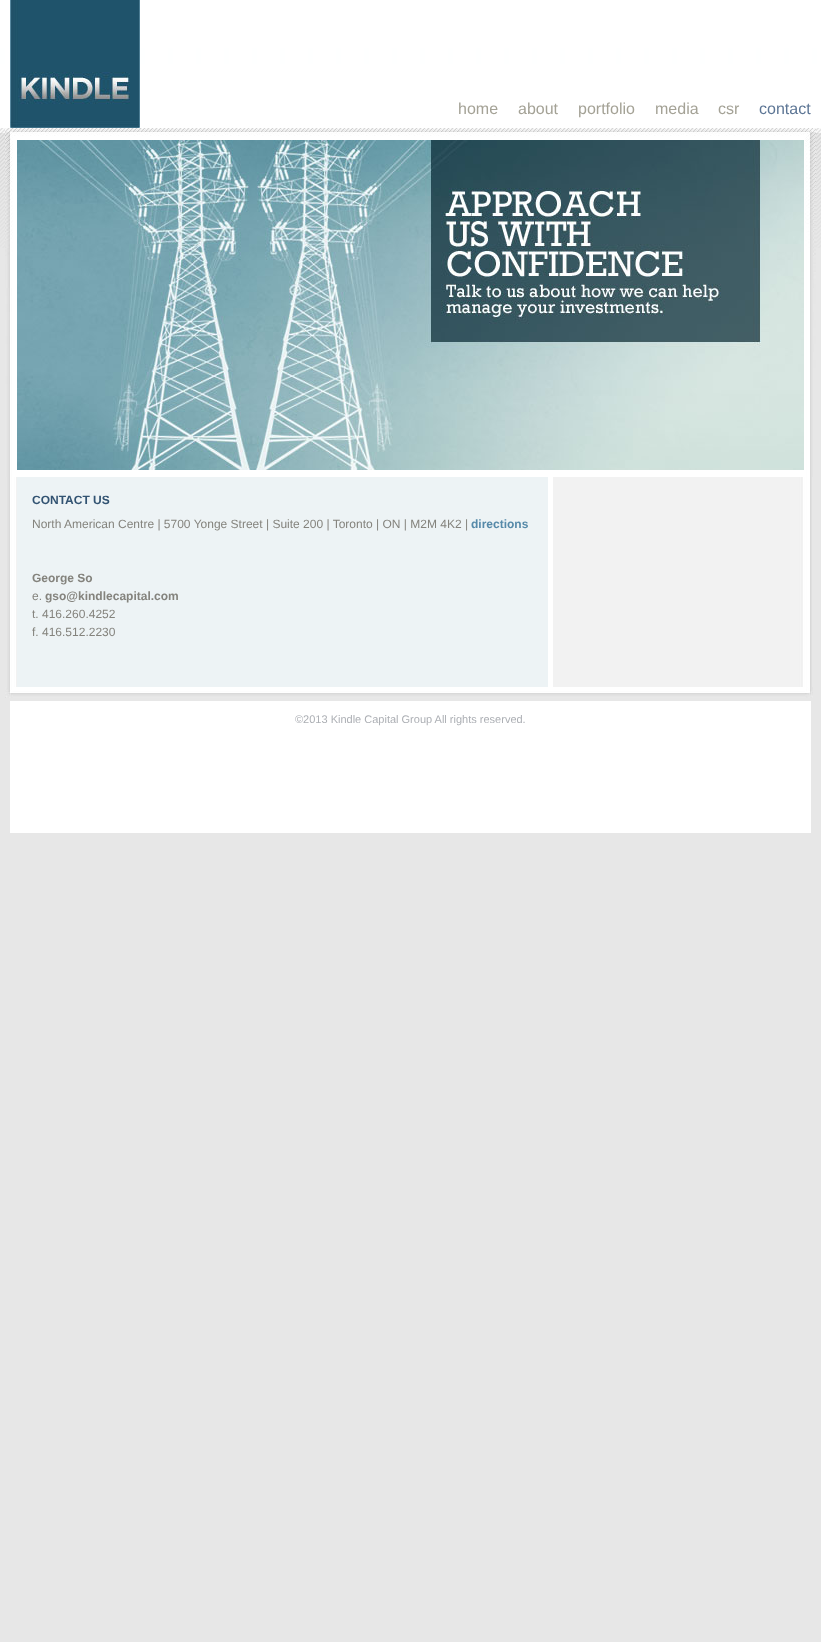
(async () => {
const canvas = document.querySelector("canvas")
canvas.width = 821
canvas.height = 1642
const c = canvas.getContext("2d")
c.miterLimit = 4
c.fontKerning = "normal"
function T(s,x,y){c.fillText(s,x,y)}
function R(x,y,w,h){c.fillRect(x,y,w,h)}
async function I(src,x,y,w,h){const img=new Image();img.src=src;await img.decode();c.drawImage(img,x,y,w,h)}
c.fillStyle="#e7e7e7"
R(0,0,821,1642)
await I("1.png",0,0,821,248)
await I("2.png",10,0,130,128)
c.font="16px Liberation Sans"
c.fillStyle="#a4a296"
T("home",458,114)
T("about",518,114)
T("portfolio",578,114)
T("media",655,114)
T("csr",718,114)
c.fillStyle="#5d7695"
T("contact",759,114)
await I("3.png",5,128,811,349)
await I("4.png",17,140,787,330)
await I("5.png",7,477,805,210)
c.fillStyle="#edf3f5"
R(17,477,531,210)
c.fillStyle="#fff"
R(548,477,5,210)
c.font="bold 12px Liberation Sans"
c.fillStyle="#325372"
T("CONTACT US",32,504)
c.font="12px Liberation Sans"
c.fillStyle="#84837d"
T("North American Centre | 5700 Yonge Street | Suite 200 | Toronto | ON | M2M 4K2 |",32,528)
c.font="bold 12px Liberation Sans"
c.fillStyle="#568aa9"
T("directions",471,528)
c.fillStyle="#84837d"
T("George So",32,582)
c.font="12px Liberation Sans"
T("e.",32,600)
c.font="bold 12px Liberation Sans"
T("gso@kindlecapital.com",45,600)
c.font="12px Liberation Sans"
T("t. 416.260.4252",32,618)
T("f. 416.512.2230",32,636)
await I("6.png",5,687,808,11)
c.fillStyle="#fff"
R(10,701,801,132)
c.font="11px Liberation Sans"
c.fillStyle="#acafb4"
T("©2013 Kindle Capital Group All rights reserved.",295,723)
})()
